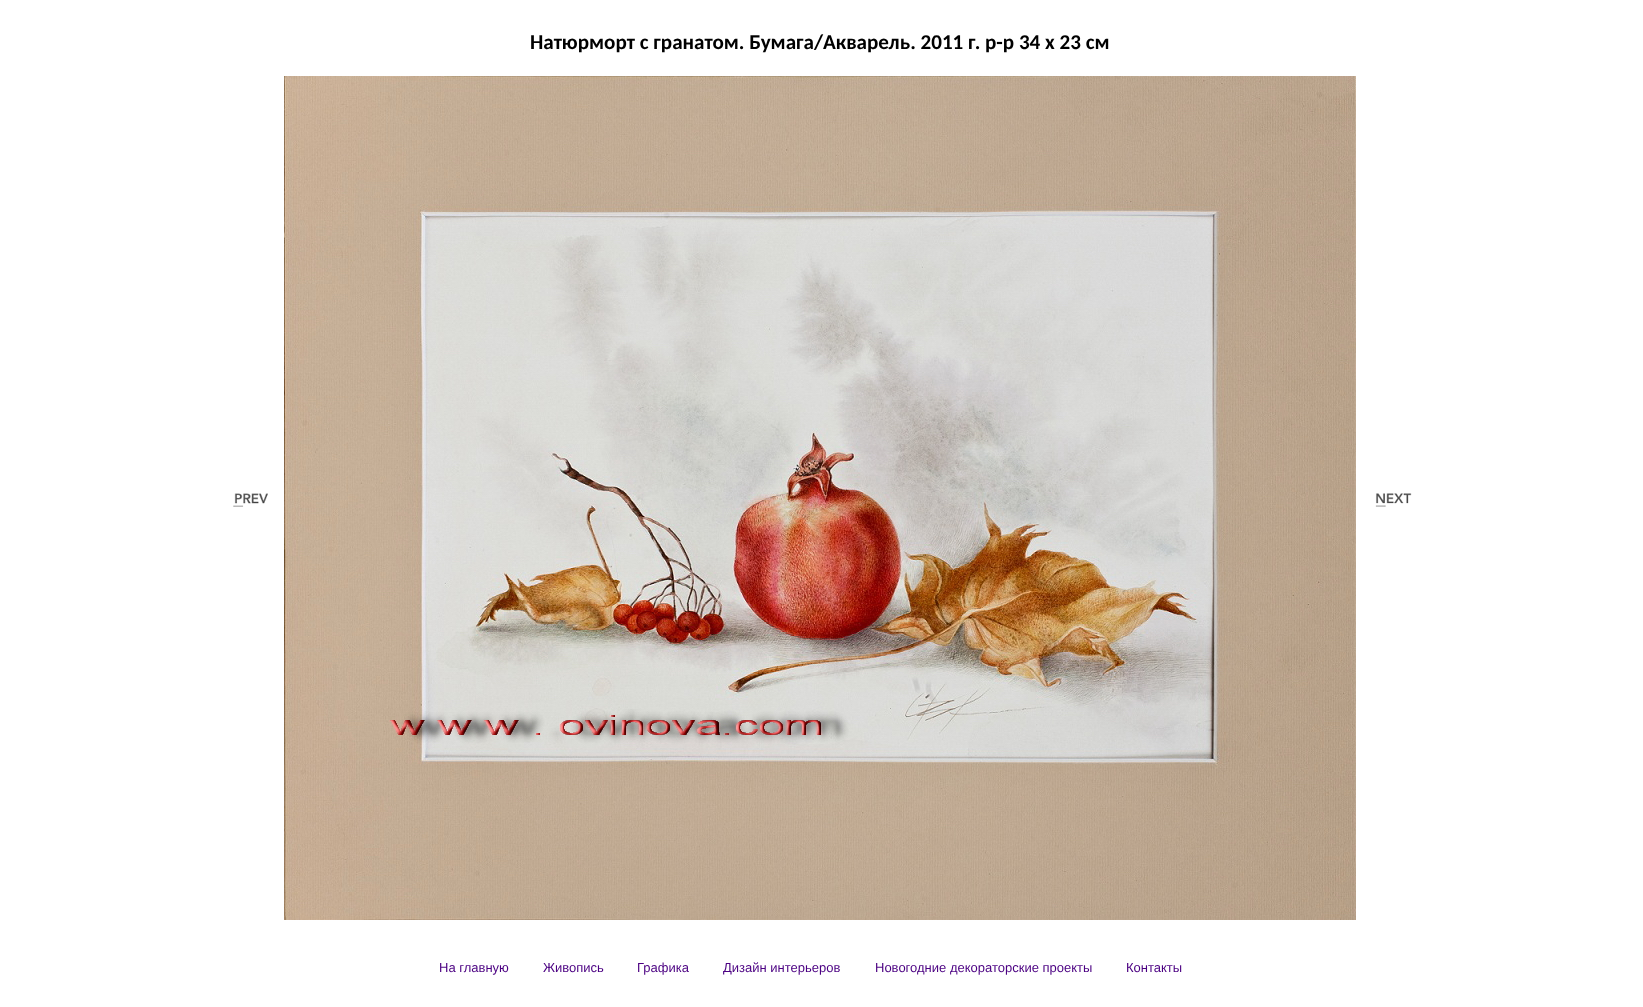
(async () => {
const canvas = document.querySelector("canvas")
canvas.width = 1643
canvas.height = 1007
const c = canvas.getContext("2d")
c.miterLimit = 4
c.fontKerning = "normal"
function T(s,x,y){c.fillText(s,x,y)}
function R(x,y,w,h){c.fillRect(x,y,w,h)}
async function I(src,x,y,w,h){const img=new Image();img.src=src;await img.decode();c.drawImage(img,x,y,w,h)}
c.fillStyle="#fff"
R(0,0,1643,1007)
c.font="bold 21.1px Carlito"
c.fillStyle="#000"
T("Натюрморт с гранатом. Бумага/Акварель. 2011 г. р-р 34 х 23 см",530,49)
await I("1.png",233,493,35,14)
await I("2.png",284,76,1072,844)
await I("3.png",1375,493,37,14)
c.font="13px Liberation Sans"
c.fillStyle="#4b0082"
T("На главную",439,972)
T("Живопись",543,972)
T("Графика",637,972)
T("Дизайн интерьеров",723,972)
T("Новогодние декораторские проекты",875,972)
T("Контакты",1126,972)
})()
